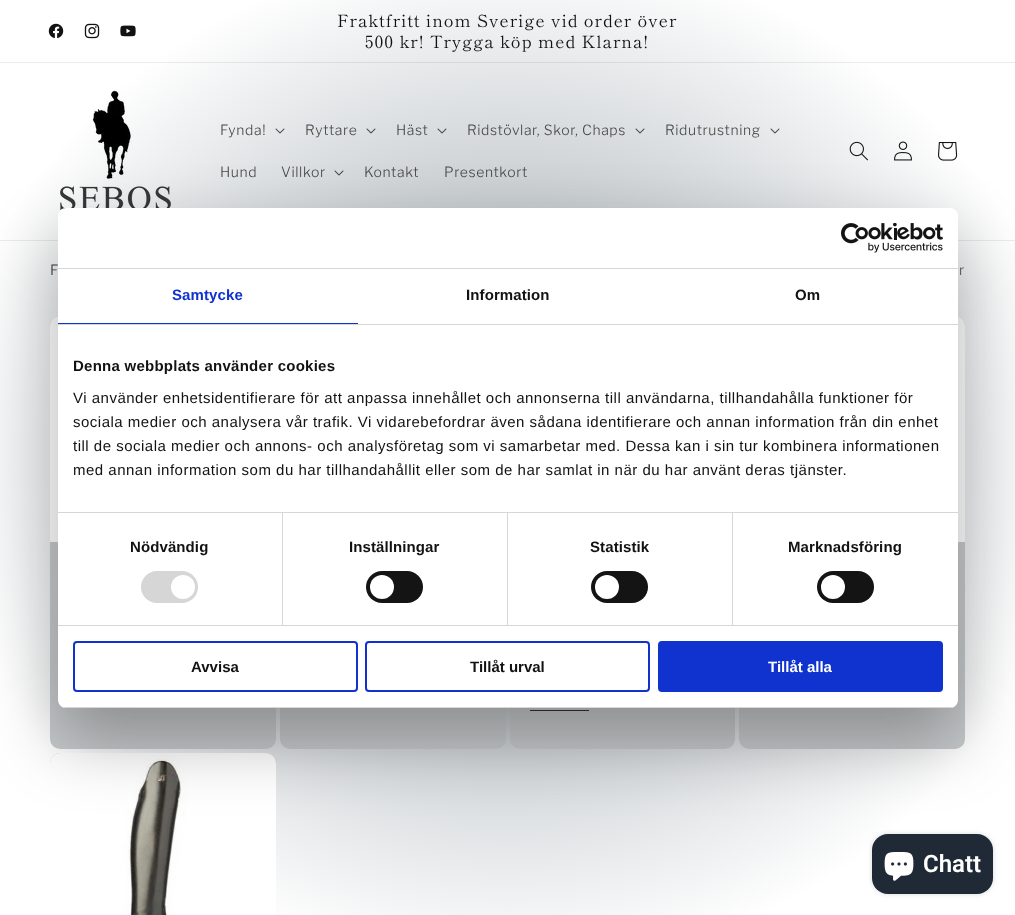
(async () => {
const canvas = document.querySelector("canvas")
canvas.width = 1015
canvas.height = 915
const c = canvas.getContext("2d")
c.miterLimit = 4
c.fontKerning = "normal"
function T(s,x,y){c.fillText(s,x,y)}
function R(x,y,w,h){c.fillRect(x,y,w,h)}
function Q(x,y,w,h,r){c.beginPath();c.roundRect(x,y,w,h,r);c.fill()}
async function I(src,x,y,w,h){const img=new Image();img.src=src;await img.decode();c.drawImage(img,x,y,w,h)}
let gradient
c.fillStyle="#fff"
R(0,0,1015,915)
gradient = c.createRadialGradient(508,508.26,0,508,508.26,718)
gradient.addColorStop(0,"#929ca3")
gradient.addColorStop(.79,"#fff")
gradient.addColorStop(.97,"#fff")
c.fillStyle = gradient
c.beginPath()
c.rect(0,0,1015,915)
c.save()
c.clip()
c.scale(1,647 / 718)
c.fillRect(0,0,1015,1016)
c.restore()
gradient = c.createRadialGradient(508,508.26,0,508,508.26,718)
gradient.addColorStop(0,"#889197")
gradient.addColorStop(.79,"#ececec")
gradient.addColorStop(.97,"#ececec")
c.fillStyle = gradient
c.beginPath()
c.rect(0,62,1015,1)
c.save()
c.clip()
c.scale(1,647 / 718)
c.fillRect(0,0,1015,1016)
c.restore()
c.beginPath()
c.rect(0,240,1015,1)
c.save()
c.clip()
c.scale(1,647 / 718)
c.fillRect(0,0,1015,1016)
c.restore()
await I("1.png",48,23,16,16)
await I("2.png",84,23,16,16)
await I("3.png",120,25,16,12)
c.letterSpacing="1px"
c.font="16.9px Shippori Mincho"
c.fillStyle="#121212"
T("Fraktfritt inom Sverige vid order över",337,27)
T("500 kr! Trygga köp med Klarna!",365,48)
await I("4.png",60,90,111,121)
c.letterSpacing="0.6px"
c.font="300 14px Libre Franklin"
c.fillStyle="#464747"
T("Fynda!",220,135)
await I("5.png",275,128,10,6)
T("Ryttare",305,135)
await I("6.png",366,128,10,6)
T("Häst",396,135)
await I("7.png",437,128,10,6)
T("Ridstövlar, Skor, Chaps",467,135)
await I("8.png",635,128,10,6)
T("Ridutrustning",665,135)
await I("9.png",770,128,10,6)
T("Hund",220,177)
T("Villkor",281,177)
await I("10.png",334,170,10,6)
T("Kontakt",364,177)
T("Presentkort",444,177)
await I("11.png",849,141,19,20)
await I("12.png",894,141,18,20)
await I("13.png",938,142,20,19)
c.letterSpacing="0px"
c.fillStyle="#333334"
T("F",50,275)
c.letterSpacing="0.6px"
c.fillStyle="#535454"
T("r",959,275)
c.fillStyle="#c7cacc"
Q(50,316,226,433,10)
await I("14.png",50,316,8,226)
Q(280,316,226,433,10)
Q(510,316,225,433,10)
c.fillStyle="#000000bf"
R(530,710,59,1)
c.fillStyle="#c7cacc"
Q(739,316,226,433,10)
await I("15.png",958,316,7,226)
Q(50,753,226,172,10)
await I("16.png",50,753,226,162)
c.fillStyle="#00000026"
c.filter="blur(2.5px)"
c.beginPath()
c.roundRect(872,834,121,60,16)
c.fill()
c.filter="none"
c.fillStyle="#202a36"
Q(872,834,121,60,16)
c.fillStyle="#0000004d"
c.filter="blur(34px)"
c.beginPath()
c.roundRect(58,240,900,500,8)
c.fill()
c.filter="none"
c.fillStyle="#fff"
Q(58,208,900,500,8)
c.fillStyle="#d6d6d6"
R(58,268,900,1)
await I("17.png",841,223,102,30)
R(58,324,900,1)
c.fillStyle="#1032cf"
R(58,323,300,1)
c.letterSpacing="0.1px"
c.font="bold 15px Liberation Sans"
T("Samtycke",172,300)
c.fillStyle="#121212"
T("Information",466,300)
T("Om",795,300)
c.fillStyle="#d6d6d6"
R(58,512,900,1)
c.letterSpacing="0.25px"
c.fillStyle="#121212"
T("Denna webbplats använder cookies",73,371)
c.letterSpacing="0.5px"
c.font="15px Liberation Sans"
T("Vi använder enhetsidentifierare för att anpassa innehållet och annonserna till användarna, tillhandahålla funktioner för",73,403)
T("sociala medier och analysera vår trafik. Vi vidarebefordrar även sådana identifierare och annan information från din enhet",73,427)
T("till de sociala medier och annons- och analysföretag som vi samarbetar med. Dessa kan i sin tur kombinera informationen",73,451)
T("med annan information som du har tillhandahållit eller som de har samlat in när du har använt deras tjänster.",73,475)
c.fillStyle="#d6d6d6"
R(58,625,900,1)
R(282,513,1,112)
c.letterSpacing="0.1px"
c.font="bold 15px Liberation Sans"
c.fillStyle="#121212"
T("Nödvändig",130,552)
c.fillStyle="#d6d6d6"
Q(141,571,57,32,16)
c.fillStyle="#fff"
c.beginPath()
c.arc(183,587,12,0,7)
c.fill()
c.fillStyle="#d6d6d6"
R(507,513,1,112)
c.fillStyle="#121212"
T("Inställningar",349,552)
c.fillStyle="#141414"
Q(366,571,57,32,16)
c.fillStyle="#fff"
c.beginPath()
c.arc(382,587,12,0,7)
c.fill()
c.fillStyle="#d6d6d6"
R(732,513,1,112)
c.fillStyle="#121212"
T("Statistik",590,552)
c.fillStyle="#141414"
Q(591,571,57,32,16)
c.fillStyle="#fff"
c.beginPath()
c.arc(607,587,12,0,7)
c.fill()
c.fillStyle="#121212"
T("Marknadsföring",788,552)
c.fillStyle="#141414"
Q(817,571,57,32,16)
c.fillStyle="#fff"
c.beginPath()
c.arc(833,587,12,0,7)
c.fill()
c.save()
c.beginPath()
c.roundRect(58,208,900,500,8)
c.clip()
c.fillStyle="#d6d6d6"
R(58,707,900,1)
c.restore()
c.beginPath()
c.roundRect(74,642,283,49,3)
c.strokeStyle="#1032cf"
c.lineWidth=2
c.stroke()
c.letterSpacing="0px"
c.fillStyle="#121212"
T("Avvisa",191,672)
c.beginPath()
c.roundRect(366,642,283,49,3)
c.stroke()
T("Tillåt urval",470,672)
c.fillStyle="#1032cf"
c.beginPath()
c.roundRect(659,642,283,49,3)
c.fill()
c.stroke()
c.fillStyle="#fff"
T("Tillåt alla",768,672)
await I("18.png",884,852,30,29)
c.font="600 24px Roboto"
T("Chatt",923,872)
})()
